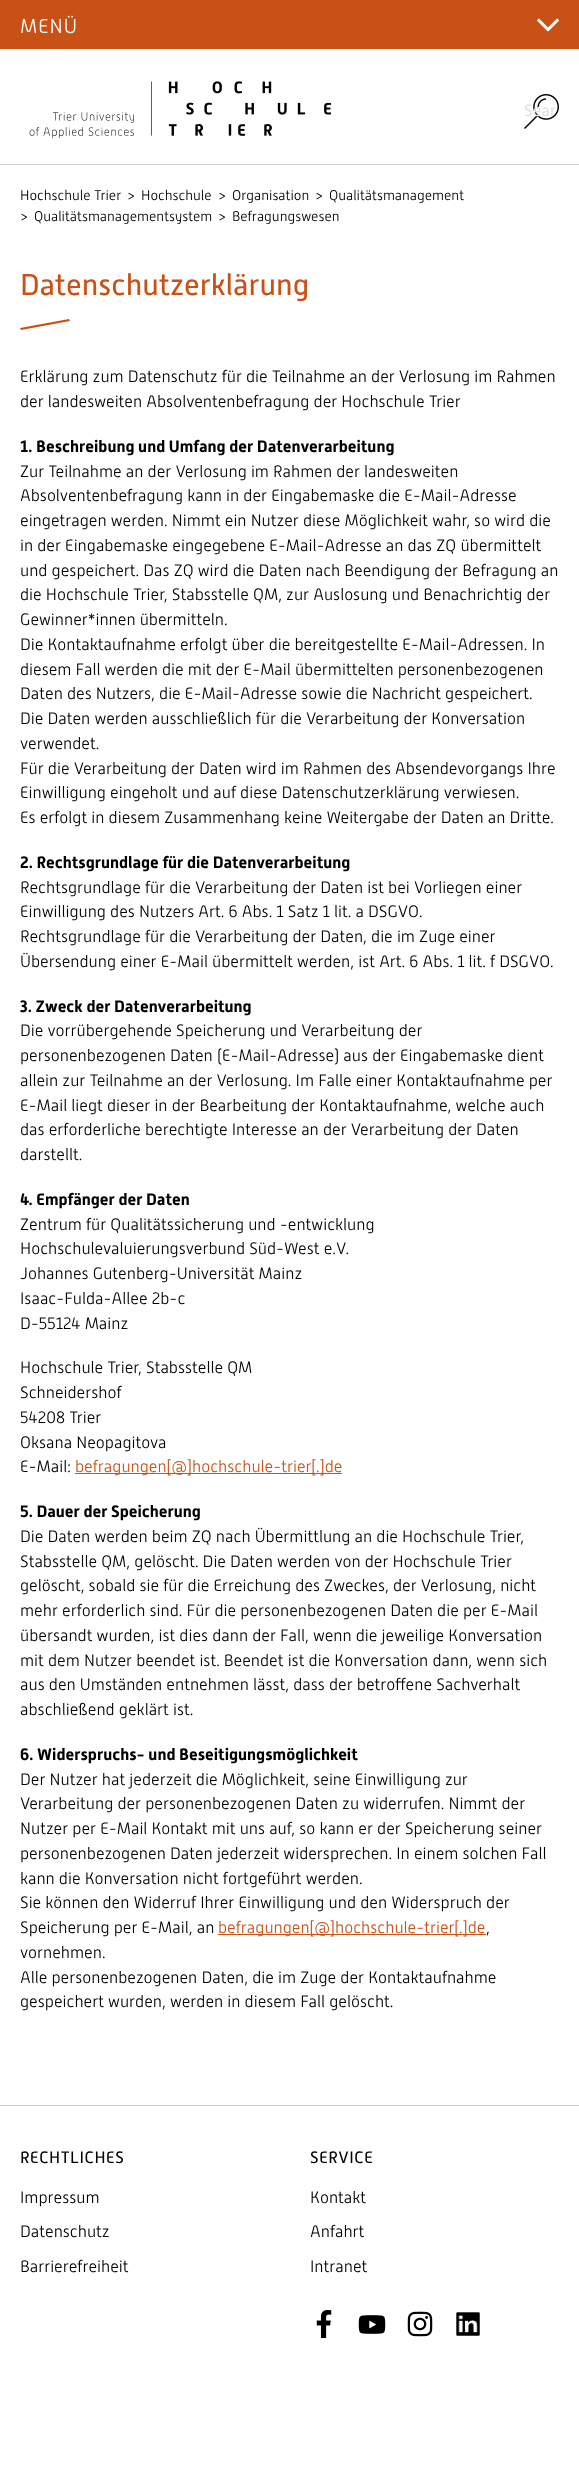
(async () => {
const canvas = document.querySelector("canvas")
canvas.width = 579
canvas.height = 2465
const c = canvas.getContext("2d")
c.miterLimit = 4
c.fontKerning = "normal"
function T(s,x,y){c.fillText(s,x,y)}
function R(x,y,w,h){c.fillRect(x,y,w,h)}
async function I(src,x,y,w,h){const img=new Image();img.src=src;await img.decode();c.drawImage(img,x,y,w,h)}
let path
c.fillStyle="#fff"
R(0,0,579,2465)
c.fillStyle="#ccc"
R(0,164,579,1)
c.fillStyle="#ca5116"
R(0,0,579,49)
c.letterSpacing="1px"
c.font="300 20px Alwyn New"
c.fillStyle="#fff"
T("MENÜ",20,33)
await I("1.png",537,18,22,14)
await I("2.png",29,81,302,58)
await I("3.png",524,94,35,35)
c.letterSpacing="0px"
c.font="16.5px Alwyn New"
c.fillStyle="#e2e2e2"
T("Sear",524,116)
c.font="300 14px Alwyn New"
c.fillStyle="#000"
T("Hochschule Trier",20,200)
T(">",127,200)
T("Hochschule",141,200)
T(">",218,200)
T("Organisation",232,200)
T(">",315,200)
T("Qualitätsmanagement",329,200)
T(">",20,221)
T("Qualitätsmanagementsystem",34,221)
T(">",218,221)
T("Befragungswesen",232,221)
c.font="30px Alwyn New"
c.fillStyle="#ca5116"
T("Datenschutzerklärung",20,295)
path = new Path2D("M20 328l49-9l1 2l-49 9z")
c.fill(path)
c.font="300 16.5px Alwyn New"
c.fillStyle="#000"
T("Erklärung zum Datenschutz für die Teilnahme an der Verlosung im Rahmen",20,382)
T("der landesweiten Absolventenbefragung der Hochschule Trier",20,407)
c.font="bold 16.5px Alwyn New"
T("1. Beschreibung und Umfang der Datenverarbeitung",20,452)
c.font="300 16.5px Alwyn New"
T("Zur Teilnahme an der Verlosung im Rahmen der landesweiten",20,477)
T("Absolventenbefragung kann in der Eingabemaske die E-Mail-Adresse",20,501)
T("eingetragen werden. Nimmt ein Nutzer diese Möglichkeit wahr, so wird die",20,526)
T("in der Eingabemaske eingegebene E-Mail-Adresse an das ZQ übermittelt",20,551)
T("und gespeichert. Das ZQ wird die Daten nach Beendigung der Befragung an",20,576)
T("die Hochschule Trier, Stabsstelle QM, zur Auslosung und Benachrichtig der",20,600)
T("Gewinner*innen übermitteln.",20,625)
T("Die Kontaktaufnahme erfolgt über die bereitgestellte E-Mail-Adressen. In",20,650)
T("diesem Fall werden die mit der E-Mail übermittelten personenbezogenen",20,675)
T("Daten des Nutzers, die E-Mail-Adresse sowie die Nachricht gespeichert.",20,699)
T("Die Daten werden ausschließlich für die Verarbeitung der Konversation",20,724)
T("verwendet.",20,749)
T("Für die Verarbeitung der Daten wird im Rahmen des Absendevorgangs Ihre",20,774)
T("Einwilligung eingeholt und auf diese Datenschutzerklärung verwiesen.",20,798)
T("Es erfolgt in diesem Zusammenhang keine Weitergabe der Daten an Dritte.",20,823)
c.font="bold 16.5px Alwyn New"
T("2. Rechtsgrundlage für die Datenverarbeitung",20,868)
c.font="300 16.5px Alwyn New"
T("Rechtsgrundlage für die Verarbeitung der Daten ist bei Vorliegen einer",20,893)
T("Einwilligung des Nutzers Art. 6 Abs. 1 Satz 1 lit. a DSGVO.",20,917)
T("Rechtsgrundlage für die Verarbeitung der Daten, die im Zuge einer",20,942)
T("Übersendung einer E-Mail übermittelt werden, ist Art. 6 Abs. 1 lit. f DSGVO.",20,967)
c.font="bold 16.5px Alwyn New"
T("3. Zweck der Datenverarbeitung",20,1012)
c.font="300 16.5px Alwyn New"
T("Die vorrübergehende Speicherung und Verarbeitung der",20,1036)
T("personenbezogenen Daten (E-Mail-Adresse) aus der Eingabemaske dient",20,1061)
T("allein zur Teilnahme an der Verlosung. Im Falle einer Kontaktaufnahme per",20,1086)
T("E-Mail liegt dieser in der Bearbeitung der Kontaktaufnahme, welche auch",20,1111)
T("das erforderliche berechtigte Interesse an der Verarbeitung der Daten",20,1135)
T("darstellt.",20,1160)
c.font="bold 16.5px Alwyn New"
T("4. Empfänger der Daten",20,1205)
c.font="300 16.5px Alwyn New"
T("Zentrum für Qualitätssicherung und -entwicklung",20,1230)
T("Hochschulevaluierungsverbund Süd-West e.V.",20,1254)
T("Johannes Gutenberg-Universität Mainz",20,1279)
T("Isaac-Fulda-Allee 2b-c",20,1304)
T("D-55124 Mainz",20,1329)
T("Hochschule Trier, Stabsstelle QM",20,1373)
T("Schneidershof",20,1398)
T("54208 Trier",20,1423)
T("Oksana Neopagitova",20,1448)
T("E-Mail:",20,1472)
c.fillStyle="#ca5116"
R(75,1473,267,1)
T("befragungen[@]hochschule-trier[.]de",75,1472)
c.font="bold 16.5px Alwyn New"
c.fillStyle="#000"
T("5. Dauer der Speicherung",20,1517)
c.font="300 16.5px Alwyn New"
T("Die Daten werden beim ZQ nach Übermittlung an die Hochschule Trier,",20,1542)
T("Stabsstelle QM, gelöscht. Die Daten werden von der Hochschule Trier",20,1567)
T("gelöscht, sobald sie für die Erreichung des Zweckes, der Verlosung, nicht",20,1591)
T("mehr erforderlich sind. Für die personenbezogenen Daten die per E-Mail",20,1616)
T("übersandt wurden, ist dies dann der Fall, wenn die jeweilige Konversation",20,1641)
T("mit dem Nutzer beendet ist. Beendet ist die Konversation dann, wenn sich",20,1666)
T("aus den Umständen entnehmen lässt, dass der betroffene Sachverhalt",20,1690)
T("abschließend geklärt ist.",20,1715)
c.font="bold 16.5px Alwyn New"
T("6. Widerspruchs- und Beseitigungsmöglichkeit",20,1760)
c.font="300 16.5px Alwyn New"
T("Der Nutzer hat jederzeit die Möglichkeit, seine Einwilligung zur",20,1785)
T("Verarbeitung der personenbezogenen Daten zu widerrufen. Nimmt der",20,1809)
T("Nutzer per E-Mail Kontakt mit uns auf, so kann er der Speicherung seiner",20,1834)
T("personenbezogenen Daten jederzeit widersprechen. In einem solchen Fall",20,1859)
T("kann die Konversation nicht fortgeführt werden.",20,1884)
T("Sie können den Widerruf Ihrer Einwilligung und den Widerspruch der",20,1908)
T("Speicherung per E-Mail, an",20,1933)
c.fillStyle="#ca5116"
R(218,1934,268,1)
T("befragungen[@]hochschule-trier[.]de",218,1933)
c.fillStyle="#000"
T(",",486,1933)
T("vornehmen.",20,1958)
T("Alle personenbezogenen Daten, die im Zuge der Kontaktaufnahme",20,1983)
T("gespeichert wurden, werden in diesem Fall gelöscht.",20,2007)
c.fillStyle="#ccc"
R(0,2105,579,1)
c.letterSpacing="0.5px"
c.font="16.5px Alwyn New"
c.fillStyle="#000"
T("RECHTLICHES",20,2163)
c.letterSpacing="0px"
c.font="300 16.5px Alwyn New"
T("Impressum",20,2203)
T("Datenschutz",20,2237)
T("Barrierefreiheit",20,2272)
c.letterSpacing="0.5px"
c.font="16.5px Alwyn New"
T("SERVICE",310,2163)
c.letterSpacing="0px"
c.font="300 16.5px Alwyn New"
T("Kontakt",310,2203)
T("Anfahrt",310,2237)
T("Intranet",310,2272)
await I("4.png",316,2310,16,28)
await I("5.png",358,2315,28,19)
await I("6.png",407,2311,26,26)
await I("7.png",456,2312,24,24)
})()
